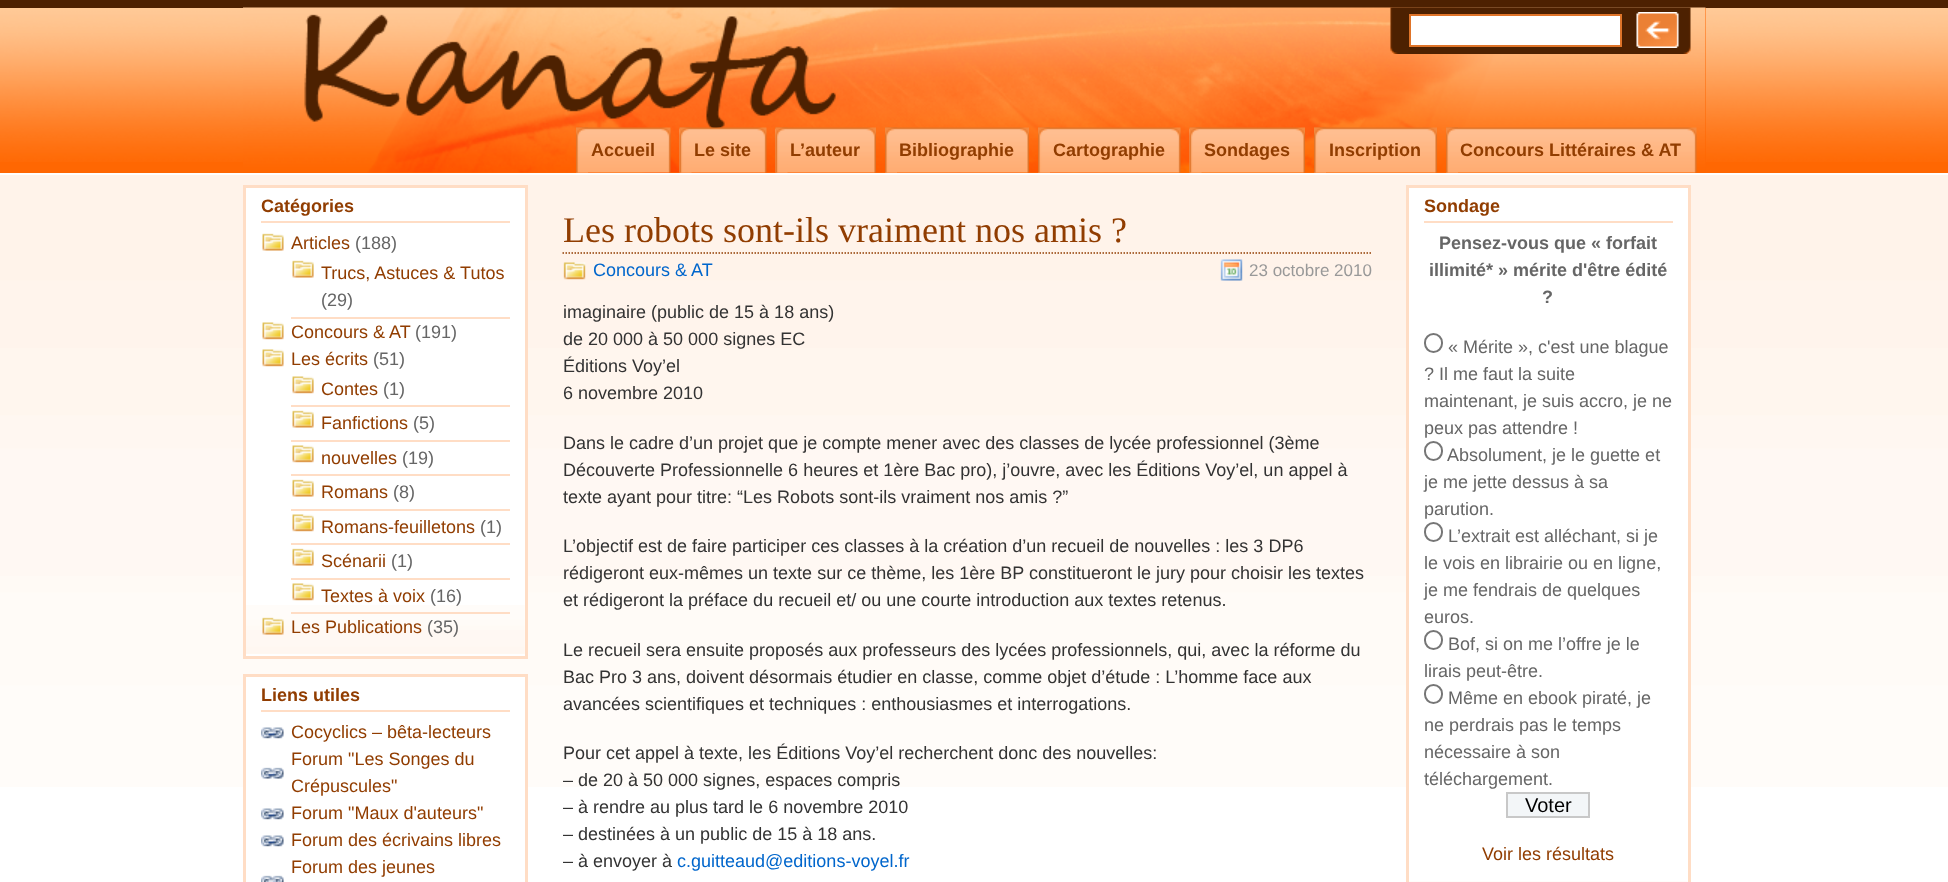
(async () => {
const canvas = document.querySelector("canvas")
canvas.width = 1948
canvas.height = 882
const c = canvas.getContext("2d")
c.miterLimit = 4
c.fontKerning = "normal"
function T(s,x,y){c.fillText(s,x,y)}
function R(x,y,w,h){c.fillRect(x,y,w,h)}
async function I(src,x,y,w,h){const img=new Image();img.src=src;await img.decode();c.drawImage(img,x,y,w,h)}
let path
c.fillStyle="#fff"
R(0,0,1948,882)
c.fillStyle="#ff6702"
R(0,162,1948,11)
await I("1.png",0,8,1948,154)
c.fillStyle="#4d2101"
R(0,0,1948,8)
c.fillStyle="#ff6702"
R(243,8,1463,154)
await I("2.png",243,7,1463,166)
await I("3.png",1390,7,301,47)
c.fillStyle="#fff"
c.beginPath()
c.rect(1410,15,211,31)
c.fill()
c.strokeStyle="#df7429"
c.lineWidth=2
c.stroke()
await I("4.png",1636,12,43,36)
await I("5.png",576,127,95,46)
await I("6.png",576,127,12,46)
c.font="bold 18px Liberation Sans"
c.fillStyle="#913d01"
T("Accueil",591,156)
await I("7.png",679,127,88,46)
await I("8.png",679,127,13,46)
T("Le site",694,156)
await I("9.png",775,127,101,46)
await I("10.png",775,127,13,46)
T("L’auteur",790,156)
await I("11.png",885,127,144,46)
await I("12.png",885,127,12,46)
T("Bibliographie",899,156)
await I("13.png",1038,127,143,46)
await I("14.png",1038,127,12,46)
T("Cartographie",1053,156)
await I("15.png",1189,127,116,46)
await I("16.png",1189,127,13,46)
T("Sondages",1204,156)
await I("17.png",1314,127,123,46)
await I("18.png",1314,127,12,46)
T("Inscription",1329,156)
await I("19.png",1446,127,251,46)
await I("20.png",1446,127,12,46)
T("Concours Littéraires & AT",1460,156)
await I("21.png",0,175,1948,612)
c.fillStyle="#fff"
R(246,188,279,468)
await I("22.png",246,605,279,49)
c.strokeStyle="#ffddc5"
c.lineWidth=3
c.strokeRect(244.5,186.5,282,471)
c.fillStyle="#ffddc5"
R(261,221,249,2)
c.fillStyle="#913d01"
T("Catégories",261,212)
await I("23.png",262,233,22,18)
c.font="18px Liberation Sans"
T("Articles",291,249)
c.fillStyle="#666"
T("(188)",355,249)
await I("24.png",292,260,22,18)
c.fillStyle="#ffddc5"
R(291,317,219,2)
c.fillStyle="#913d01"
T("Trucs, Astuces & Tutos",321,279)
c.fillStyle="#666"
T("(29)",321,306)
await I("25.png",262,322,22,18)
c.fillStyle="#913d01"
T("Concours & AT",291,338)
c.fillStyle="#666"
T("(191)",415,338)
await I("25.png",262,349,22,18)
c.fillStyle="#913d01"
T("Les écrits",291,365)
c.fillStyle="#666"
T("(51)",373,365)
await I("26.png",292,376,22,18)
c.fillStyle="#ffddc5"
R(291,405,219,2)
c.fillStyle="#913d01"
T("Contes",321,395)
c.fillStyle="#666"
T("(1)",383,395)
await I("24.png",292,410,22,18)
c.fillStyle="#ffddc5"
R(291,440,219,2)
c.fillStyle="#913d01"
T("Fanfictions",321,429)
c.fillStyle="#666"
T("(5)",413,429)
await I("26.png",292,445,22,18)
c.fillStyle="#ffddc5"
R(291,474,219,2)
c.fillStyle="#913d01"
T("nouvelles",321,464)
c.fillStyle="#666"
T("(19)",402,464)
await I("24.png",292,479,22,18)
c.fillStyle="#ffddc5"
R(291,509,219,2)
c.fillStyle="#913d01"
T("Romans",321,498)
c.fillStyle="#666"
T("(8)",393,498)
await I("26.png",292,514,22,18)
c.fillStyle="#ffddc5"
R(291,543,219,2)
c.fillStyle="#913d01"
T("Romans-feuilletons",321,533)
c.fillStyle="#666"
T("(1)",480,533)
await I("24.png",292,548,22,18)
c.fillStyle="#ffddc5"
R(291,578,219,2)
c.fillStyle="#913d01"
T("Scénarii",321,567)
c.fillStyle="#666"
T("(1)",391,567)
await I("26.png",292,583,22,18)
c.fillStyle="#ffddc5"
R(291,612,219,2)
c.fillStyle="#913d01"
T("Textes à voix",321,602)
c.fillStyle="#666"
T("(16)",430,602)
await I("27.png",262,617,22,18)
c.fillStyle="#913d01"
T("Les Publications",291,633)
c.fillStyle="#666"
T("(35)",427,633)
c.fillStyle="#fff"
R(246,677,279,110)
c.strokeRect(244.5,675.5,282,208)
c.fillStyle="#ffddc5"
R(261,710,249,2)
c.font="bold 18px Liberation Sans"
c.fillStyle="#913d01"
T("Liens utiles",261,701)
await I("28.png",261,727,23,12)
c.font="18px Liberation Sans"
T("Cocyclics – bêta-lecteurs",291,738)
await I("29.png",261,767,23,12)
T("Forum \"Les Songes du",291,765)
T("Crépuscules\"",291,792)
await I("28.png",261,808,23,12)
T("Forum \"Maux d'auteurs\"",291,819)
await I("28.png",261,835,23,12)
T("Forum des écrivains libres",291,846)
await I("30.png",261,875,23,7)
T("Forum des jeunes",291,873)
path = new Path2D("M562.5 253h810")
c.strokeStyle="#913d01"
c.lineWidth=1.5
c.setLineDash([1.5,1.5])
c.stroke(path)
c.font="36px Liberation Serif"
T("Les robots sont-ils vraiment nos amis ?",563,242)
await I("31.png",563,262,23,18)
c.font="18px Liberation Sans"
c.fillStyle="#06c"
T("Concours & AT",593,276)
await I("32.png",1220,259,23,22)
c.font="17px Liberation Sans"
c.fillStyle="#999"
T("23 octobre 2010",1249,276)
c.font="18px Liberation Sans"
c.fillStyle="#333"
T("imaginaire (public de 15 à 18 ans)",563,318)
T("de 20 000 à 50 000 signes EC",563,345)
T("Éditions Voy’el",563,372)
T("6 novembre 2010",563,399)
T("Dans le cadre d’un projet que je compte mener avec des classes de lycée professionnel (3ème",563,449)
T("Découverte Professionnelle 6 heures et 1ère Bac pro), j’ouvre, avec les Éditions Voy’el, un appel à",563,476)
T("texte ayant pour titre: “Les Robots sont-ils vraiment nos amis ?”",563,503)
T("L’objectif est de faire participer ces classes à la création d’un recueil de nouvelles : les 3 DP6",563,552)
T("rédigeront eux-mêmes un texte sur ce thème, les 1ère BP constitueront le jury pour choisir les textes",563,579)
T("et rédigeront la préface du recueil et/ ou une courte introduction aux textes retenus.",563,606)
T("Le recueil sera ensuite proposés aux professeurs des lycées professionnels, qui, avec la réforme du",563,656)
T("Bac Pro 3 ans, doivent désormais étudier en classe, comme objet d’étude : L’homme face aux",563,683)
T("avancées scientifiques et techniques : enthousiasmes et interrogations.",563,710)
T("Pour cet appel à texte, les Éditions Voy’el recherchent donc des nouvelles:",563,759)
T("– de 20 à 50 000 signes, espaces compris",563,786)
T("– à rendre au plus tard le 6 novembre 2010",563,813)
T("– destinées à un public de 15 à 18 ans.",563,840)
T("– à envoyer à",563,867)
c.fillStyle="#06c"
T("c.guitteaud@editions-voyel.fr",677,867)
c.fillStyle="#fff"
R(1409,188,279,599)
await I("33.png",1409,881,279,1)
c.strokeStyle="#ffddc5"
c.lineWidth=3
c.setLineDash([])
c.strokeRect(1407.5,186.5,282,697)
c.fillStyle="#ffddc5"
R(1424,221,249,2)
c.font="bold 18px Liberation Sans"
c.fillStyle="#913d01"
T("Sondage",1424,212)
c.fillStyle="#666"
T("Pensez-vous que « forfait",1439,249)
T("illimité* » mérite d'être édité",1429,276)
T("?",1542,303)
c.beginPath()
c.roundRect(1425,334,17,18,8.5)
c.strokeStyle="#767676"
c.lineWidth=2
c.stroke()
c.font="18px Liberation Sans"
T("« Mérite », c'est une blague",1448,353)
T("? Il me faut la suite",1424,380)
T("maintenant, je suis accro, je ne",1424,407)
T("peux pas attendre !",1424,434)
c.beginPath()
c.roundRect(1425,442,17,18,8.5)
c.stroke()
T("Absolument, je le guette et",1447,461)
T("je me jette dessus à sa",1424,488)
T("parution.",1424,515)
c.beginPath()
c.roundRect(1425,523,17,18,8.5)
c.stroke()
T("L’extrait est alléchant, si je",1448,542)
T("le vois en librairie ou en ligne,",1424,569)
T("je me fendrais de quelques",1424,596)
T("euros.",1424,623)
c.beginPath()
c.roundRect(1425,631,17,18,8.5)
c.stroke()
T("Bof, si on me l’offre je le",1448,650)
T("lirais peut-être.",1424,677)
c.beginPath()
c.roundRect(1425,685,17,18,8.5)
c.stroke()
T("Même en ebook piraté, je",1448,704)
T("ne perdrais pas le temps",1424,731)
T("nécessaire à son",1424,758)
T("téléchargement.",1424,785)
c.fillStyle="#f3f6f8"
c.beginPath()
c.rect(1507,793,82,24)
c.fill()
c.strokeStyle="#c8c8c8"
c.stroke()
c.font="20px Liberation Sans"
c.fillStyle="#000"
T("Voter",1525,812)
c.font="18px Liberation Sans"
c.fillStyle="#913d01"
T("Voir les résultats",1482,860)
})()
